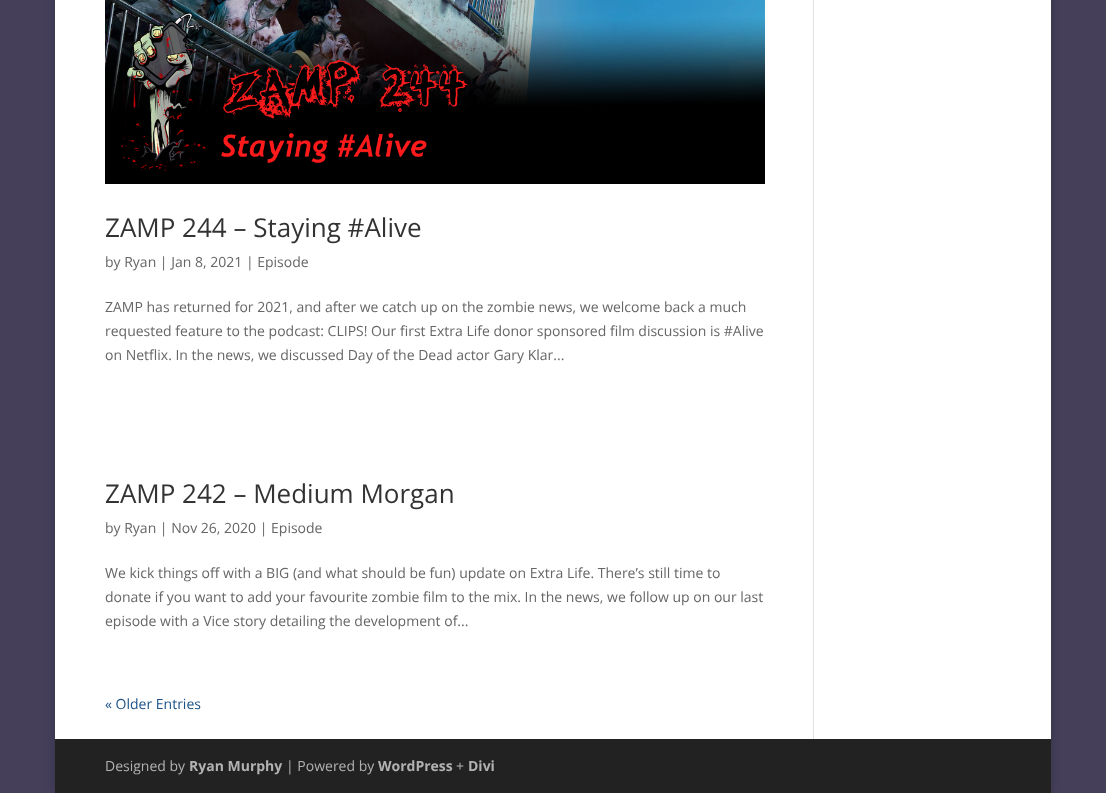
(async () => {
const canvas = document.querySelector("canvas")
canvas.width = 1106
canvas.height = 793
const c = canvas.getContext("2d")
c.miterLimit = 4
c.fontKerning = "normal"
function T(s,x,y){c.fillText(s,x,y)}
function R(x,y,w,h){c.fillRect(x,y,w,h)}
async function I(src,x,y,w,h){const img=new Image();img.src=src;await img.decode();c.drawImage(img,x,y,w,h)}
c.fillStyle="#453f5a"
R(0,0,1106,793)
c.fillStyle="#00000033"
c.filter="blur(5px)"
c.beginPath()
c.rect(55,-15,996,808)
c.fill()
c.filter="none"
c.fillStyle="#fff"
R(55,0,996,739)
await I("1.png",105,0,660,184)
c.font="26px Open Sans"
c.fillStyle="#333"
T("ZAMP 244 – Staying #Alive",105,237)
c.font="14px Open Sans"
c.fillStyle="#666"
T("by Ryan | Jan 8, 2021 | Episode",105,267)
T("ZAMP has returned for 2021, and after we catch up on the zombie news, we welcome back a much",105,312)
T("requested feature to the podcast: CLIPS! Our first Extra Life donor sponsored film discussion is #Alive",105,336)
T("on Netflix. In the news, we discussed Day of the Dead actor Gary Klar...",105,360)
c.font="26px Open Sans"
c.fillStyle="#333"
T("ZAMP 242 – Medium Morgan",105,503)
c.font="14px Open Sans"
c.fillStyle="#666"
T("by Ryan | Nov 26, 2020 | Episode",105,533)
T("We kick things off with a BIG (and what should be fun) update on Extra Life. There’s still time to",105,578)
T("donate if you want to add your favourite zombie film to the mix. In the news, we follow up on our last",105,602)
T("episode with a Vice story detailing the development of...",105,626)
c.fillStyle="#1b5288"
T("« Older Entries",105,709)
c.fillStyle="#e2e2e2"
R(813,0,1,739)
c.fillStyle="#222"
R(55,739,996,54)
c.fillStyle="#b2b2b2"
T("Designed by",105,771)
c.font="bold 14px Open Sans"
T("Ryan Murphy",189,771)
c.font="14px Open Sans"
T("| Powered by",286,771)
c.font="bold 14px Open Sans"
T("WordPress",378,771)
c.font="14px Open Sans"
T("+",456,771)
c.font="bold 14px Open Sans"
T("Divi",468,771)
})()
